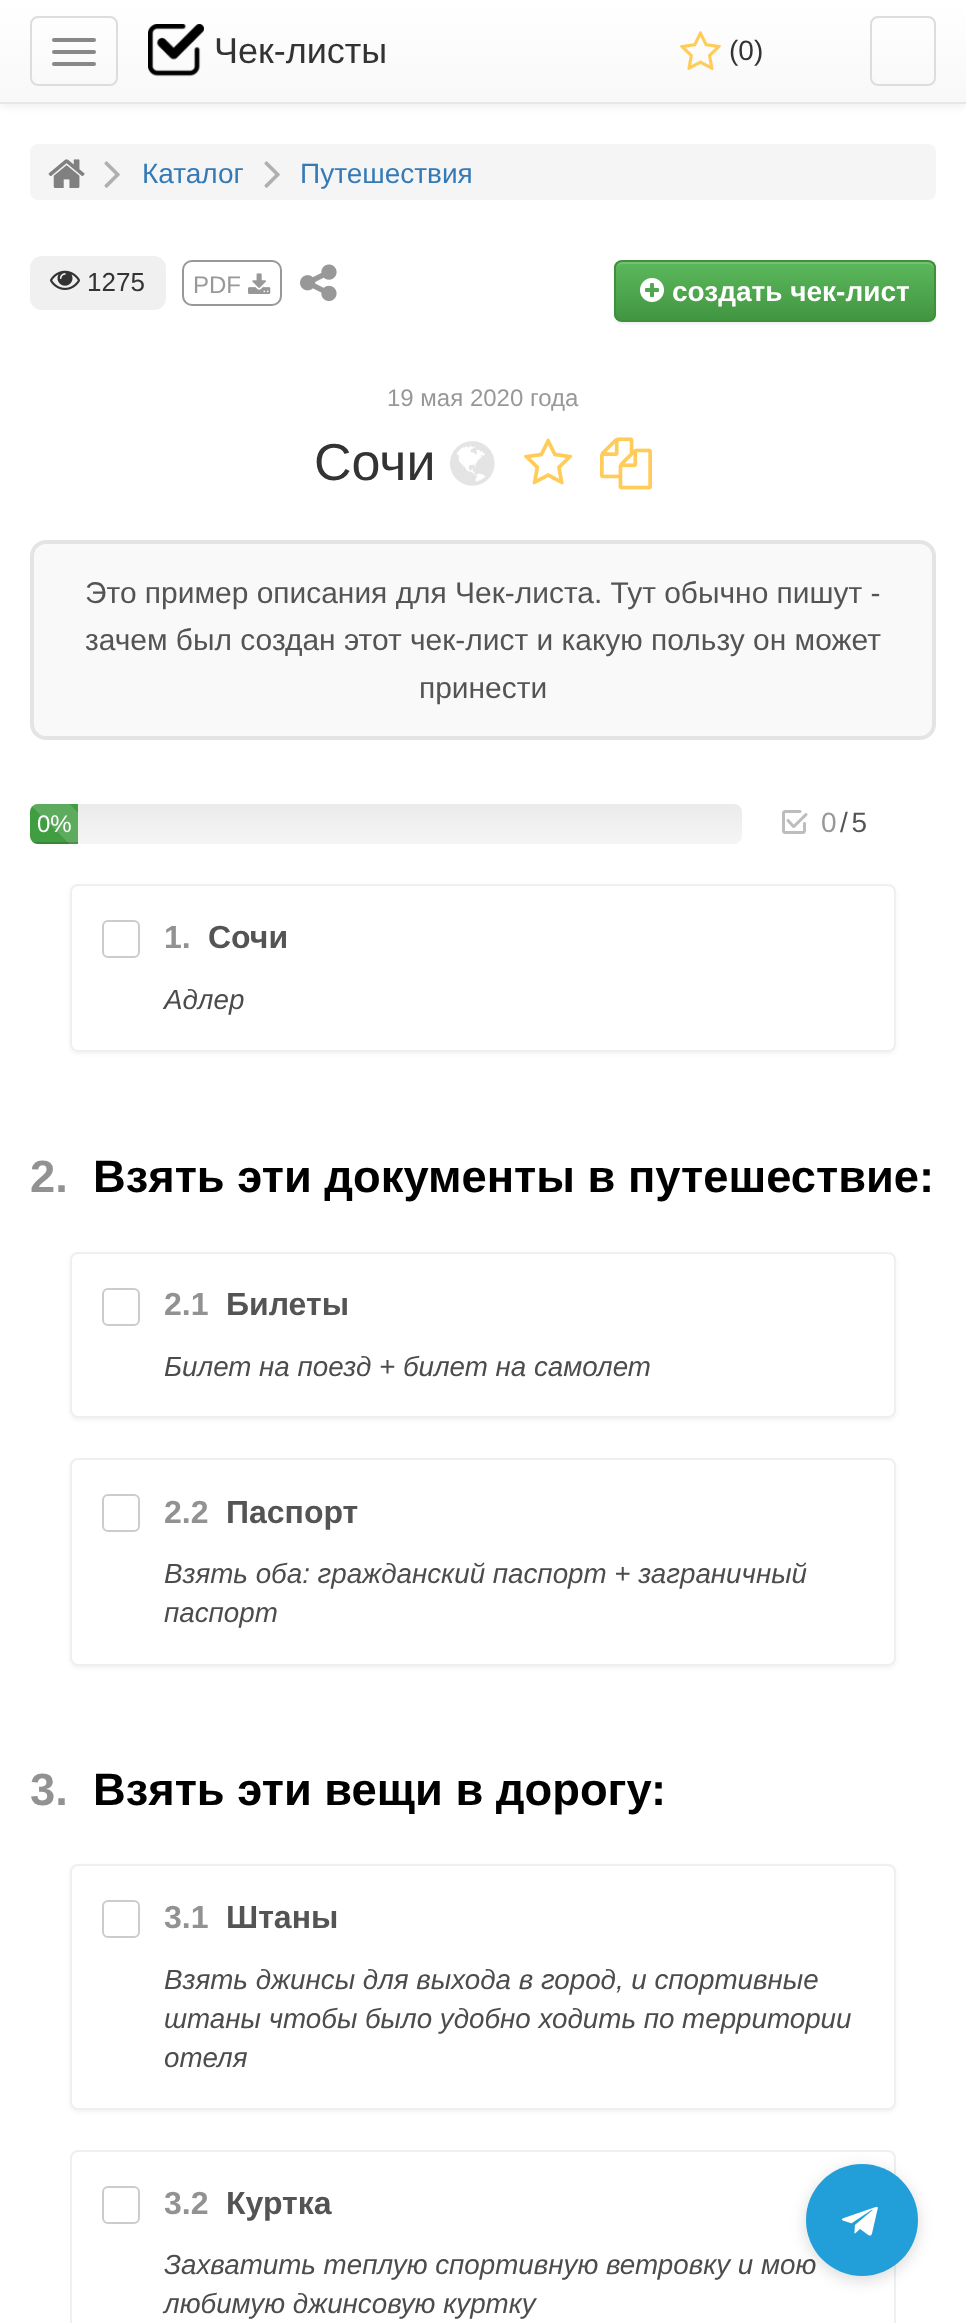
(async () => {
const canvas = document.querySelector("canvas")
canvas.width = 966
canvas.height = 2323
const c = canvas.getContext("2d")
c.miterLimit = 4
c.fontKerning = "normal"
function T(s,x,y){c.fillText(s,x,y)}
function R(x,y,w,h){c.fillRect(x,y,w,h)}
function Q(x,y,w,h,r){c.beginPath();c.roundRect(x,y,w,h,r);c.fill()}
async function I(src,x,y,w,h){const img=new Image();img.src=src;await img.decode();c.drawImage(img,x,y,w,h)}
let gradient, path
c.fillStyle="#fff"
R(0,0,966,2323)
c.fillStyle="#00000012"
c.filter="blur(5px)"
c.beginPath()
c.rect(0,2,966,104)
c.fill()
c.filter="none"
gradient = c.createLinearGradient(483,0,483,102)
gradient.addColorStop(0,"#fff")
gradient.addColorStop(1,"#f8f8f8")
c.fillStyle = gradient
R(0,0,966,102)
c.fillStyle="#e7e7e7"
R(0,102,966,2)
c.beginPath()
c.roundRect(31,17,86,68,7)
c.strokeStyle="#ddd"
c.lineWidth=2
c.stroke()
c.fillStyle="#888"
Q(52,38,44,4,2)
Q(52,50,44,4,2)
Q(52,62,44,4,2)
await I("1.png",148,24,56,53)
c.font="36px Liberation Sans"
c.fillStyle="#333"
T("Чек-листы",214,63)
await I("2.png",680,31,41,39)
c.font="28px Liberation Sans"
T("(0)",729,60)
c.beginPath()
c.roundRect(871,17,64,68,7)
c.stroke()
c.fillStyle="#f5f5f5"
Q(30,144,906,56,8)
await I("3.png",48,159,37,29)
await I("4.png",104,161,16,27)
c.fillStyle="#337ab7"
T("Каталог",142,183)
await I("4.png",264,161,16,27)
T("Путешествия",300,183)
c.fillStyle="#f0f0f0"
Q(30,256,136,54,12)
await I("5.png",50,270,30,20)
c.font="26px Liberation Sans"
c.fillStyle="#333"
T("1275",87,291)
c.beginPath()
c.roundRect(183,261,98,44,9)
c.strokeStyle="#989898"
c.stroke()
c.font="24px Liberation Sans"
c.fillStyle="#989898"
T("PDF",193,293)
await I("6.png",248,273,23,21)
await I("7.png",300,264,37,37)
c.fillStyle="#00000012"
c.filter="blur(1px)"
c.beginPath()
c.roundRect(614,262,322,62,8)
c.fill()
c.filter="none"
c.save()
c.beginPath()
c.roundRect(614,260,322,62,8)
c.clip()
gradient = c.createLinearGradient(775,262,775,320)
gradient.addColorStop(0,"#5cb85c")
gradient.addColorStop(1,"#419641")
c.fillStyle = gradient
R(614,262,322,58)
c.restore()
c.fillStyle="#ffffff26"
path = new Path2D("M622 264h306c3 0 6 3 6 6c0-4-1-8-6-8h-307c-4 1-5 5-5 8c0-3 3-6 6-6z")
c.fill(path)
c.beginPath()
c.roundRect(615,261,320,60,7)
c.strokeStyle="#3e8f3e"
c.stroke()
await I("8.png",640,278,24,24)
c.font="bold 28px Liberation Sans"
c.fillStyle="#fff"
T("создать чек-лист",672,301)
c.font="24px Liberation Sans"
c.fillStyle="#989898"
T("19 мая 2020 года",387,406)
c.font="52px Liberation Sans"
c.fillStyle="#333"
T("Сочи",314,480)
await I("9.png",450,441,45,45)
await I("10.png",524,438,49,47)
await I("11.png",600,437,52,53)
c.fillStyle="#f9f9f9"
c.beginPath()
c.roundRect(32,542,902,196,14)
c.fill()
c.strokeStyle="#e4e4e4"
c.lineWidth=4
c.stroke()
c.font="29.95px Liberation Sans"
c.fillStyle="#545454"
T("Это пример описания для Чек-листа. Тут обычно пишут -",85,603)
T("зачем был создан этот чек-лист и какую пользу он может",85,650)
T("принести",419,698)
gradient = c.createLinearGradient(386,804,386,844)
gradient.addColorStop(0,"#ebebeb")
gradient.addColorStop(1,"#f5f5f5")
c.fillStyle = gradient
Q(30,804,712,40,8)
c.fillStyle="#419d41"
c.beginPath()
c.roundRect(30,804,48,40,[8,0,0,8])
c.fill()
gradient = c.createLinearGradient(30,884,110,804)
gradient.addColorStop(.25,"#ffffff26")
gradient.addColorStop(.25,"#ffffff00")
gradient.addColorStop(.5,"#ffffff00")
gradient.addColorStop(.5,"#ffffff26")
gradient.addColorStop(.75,"#ffffff26")
gradient.addColorStop(.75,"#ffffff00")
gradient.addColorStop(1,"#00000000")
c.fillStyle = gradient
c.beginPath()
c.roundRect(30,804,48,40,[8,0,0,8])
c.fill()
c.save()
c.beginPath()
c.roundRect(30,804,712,40,8)
c.clip()
c.fillStyle="#00000026"
R(30,842,48,2)
c.restore()
c.font="24px Liberation Sans"
c.fillStyle="#fff"
T("0%",37,832)
await I("12.png",782,810,26,24)
c.letterSpacing="-2px"
c.font="28px Liberation Sans"
c.fillStyle="#989898"
T("0",821,832)
c.fillStyle="#545454"
T("/ 5",840,832)
c.fillStyle="#0000000d"
c.filter="blur(2px)"
c.beginPath()
c.roundRect(70,886,826,168,8)
c.fill()
c.filter="none"
c.fillStyle="#fff"
c.beginPath()
c.roundRect(71,885,824,166,7)
c.fill()
c.strokeStyle="#efefef"
c.lineWidth=2
c.stroke()
c.beginPath()
c.roundRect(103,921,36,36,5)
c.strokeStyle="#ccc"
c.stroke()
c.letterSpacing="0px"
c.font="bold 32px Liberation Sans"
c.fillStyle="#929292"
T("1.",164,948)
c.fillStyle="#545454"
T("Сочи",208,948)
c.font="italic 27.75px Liberation Sans"
c.fillStyle="#4c4c4c"
T("Адлер",164,1009)
c.font="bold 45.3px Liberation Sans"
c.fillStyle="#929292"
T("2.",30,1192)
c.fillStyle="#000"
T("Взять эти документы в путешествие:",93,1192)
c.fillStyle="#0000000d"
c.filter="blur(2px)"
c.beginPath()
c.roundRect(70,1254,826,166,8)
c.fill()
c.filter="none"
c.fillStyle="#fff"
c.beginPath()
c.roundRect(71,1253,824,164,7)
c.fill()
c.strokeStyle="#efefef"
c.stroke()
c.beginPath()
c.roundRect(103,1289,36,36,5)
c.strokeStyle="#ccc"
c.stroke()
c.font="bold 32px Liberation Sans"
c.fillStyle="#929292"
T("2.1",164,1315)
c.fillStyle="#545454"
T("Билеты",226,1315)
c.font="italic 27.75px Liberation Sans"
c.fillStyle="#4c4c4c"
T("Билет на поезд + билет на самолет",164,1376)
c.fillStyle="#0000000d"
c.filter="blur(2px)"
c.beginPath()
c.roundRect(70,1460,826,208,8)
c.fill()
c.filter="none"
c.fillStyle="#fff"
c.beginPath()
c.roundRect(71,1459,824,206,7)
c.fill()
c.strokeStyle="#efefef"
c.stroke()
c.beginPath()
c.roundRect(103,1495,36,36,5)
c.strokeStyle="#ccc"
c.stroke()
c.font="bold 32px Liberation Sans"
c.fillStyle="#929292"
T("2.2",164,1523)
c.fillStyle="#545454"
T("Паспорт",226,1523)
c.font="italic 27.75px Liberation Sans"
c.fillStyle="#4c4c4c"
T("Взять оба: гражданский паспорт + заграничный",164,1583)
T("паспорт",164,1622)
c.font="bold 45.3px Liberation Sans"
c.fillStyle="#929292"
T("3.",30,1805)
c.fillStyle="#000"
T("Взять эти вещи в дорогу:",93,1805)
c.fillStyle="#0000000d"
c.filter="blur(2px)"
c.beginPath()
c.roundRect(70,1866,826,246,8)
c.fill()
c.filter="none"
c.fillStyle="#fff"
c.beginPath()
c.roundRect(71,1865,824,244,7)
c.fill()
c.strokeStyle="#efefef"
c.stroke()
c.beginPath()
c.roundRect(103,1901,36,36,5)
c.strokeStyle="#ccc"
c.stroke()
c.font="bold 32px Liberation Sans"
c.fillStyle="#929292"
T("3.1",164,1928)
c.fillStyle="#545454"
T("Штаны",226,1928)
c.font="italic 27.75px Liberation Sans"
c.fillStyle="#4c4c4c"
T("Взять джинсы для выхода в город, и спортивные",164,1989)
T("штаны чтобы было удобно ходить по территории",164,2028)
T("отеля",164,2067)
c.beginPath()
c.roundRect(71,2151,824,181,7)
c.strokeStyle="#efefef"
c.stroke()
c.beginPath()
c.roundRect(103,2187,36,36,5)
c.strokeStyle="#ccc"
c.stroke()
c.font="bold 32px Liberation Sans"
c.fillStyle="#929292"
T("3.2",164,2214)
c.fillStyle="#545454"
T("Куртка",226,2214)
c.font="italic 27.75px Liberation Sans"
c.fillStyle="#4c4c4c"
T("Захватить теплую спортивную ветровку и мою",164,2274)
T("любимую джинсовую куртку",164,2313)
c.fillStyle="#00000026"
c.filter="blur(8px)"
c.beginPath()
c.roundRect(806,2168,112,112,56)
c.fill()
c.filter="none"
c.fillStyle="#229ed9"
c.beginPath()
c.arc(862,2220,56,0,7)
c.fill()
await I("13.png",841,2206,37,30)
})()
